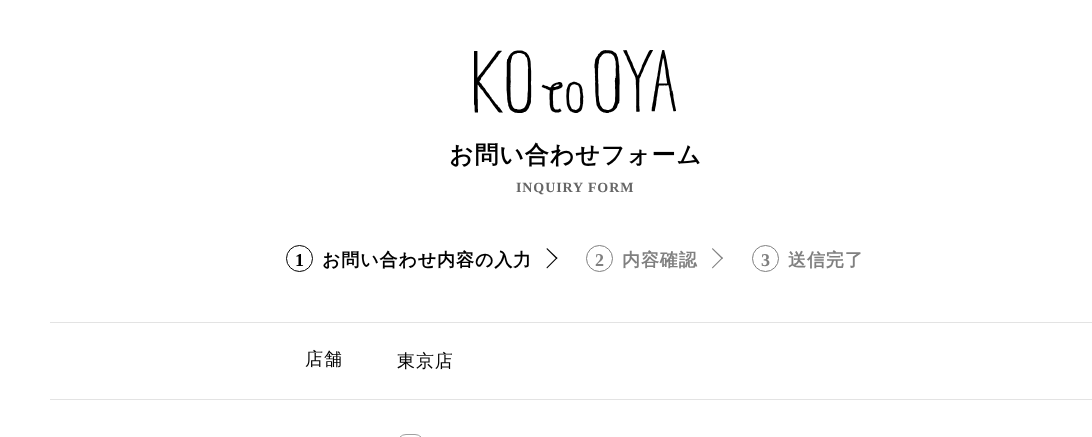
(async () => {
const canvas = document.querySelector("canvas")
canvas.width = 1092
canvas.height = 437
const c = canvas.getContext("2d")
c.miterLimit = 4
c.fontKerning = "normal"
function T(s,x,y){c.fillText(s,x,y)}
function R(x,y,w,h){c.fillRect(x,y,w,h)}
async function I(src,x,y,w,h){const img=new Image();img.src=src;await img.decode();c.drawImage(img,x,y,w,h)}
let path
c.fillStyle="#fff"
R(0,0,1092,437)
await I("1.png",474,50,202,63)
c.letterSpacing="0.9px"
c.font="bold 24px WenQuanYi Zen Hei"
c.fillStyle="#000"
T("お問い合わせフォーム",449,163)
c.font="bold 14px Liberation Serif"
c.fillStyle="#666"
T("INQUIRY FORM",516,192)
c.beginPath()
c.arc(299.5,258.5,13,0,7)
c.strokeStyle="#000"
c.stroke()
c.font="bold 18px Liberation Serif"
c.fillStyle="#000"
T("1",295,266)
c.font="bold 18px WenQuanYi Zen Hei"
T("お問い合わせ内容の入力",322,266)
path = new Path2D("M546.5 249l.5-1l10.5 10l-1 1z")
c.fill(path)
path = new Path2D("M546.5 267.5l10-10l1 .5l-10.5 10.5z")
c.fill(path)
c.beginPath()
c.arc(599.5,258.5,13,0,7)
c.strokeStyle="#808080"
c.stroke()
c.font="bold 18px Liberation Serif"
c.fillStyle="#808080"
T("2",595,266)
c.font="bold 18px WenQuanYi Zen Hei"
T("内容確認",622,266)
path = new Path2D("M712 249l.5-1l10.5 10l-1 1z")
c.fill(path)
path = new Path2D("M712 267.5l10-10l1 .5l-10.5 10.5z")
c.fill(path)
c.beginPath()
c.arc(765.5,258.5,13,0,7)
c.stroke()
c.font="bold 18px Liberation Serif"
T("3",761,266)
c.font="bold 18px WenQuanYi Zen Hei"
T("送信完了",788,266)
c.fillStyle="#e3e3e3"
R(50,322,1042,1)
R(50,399,1042,1)
c.font="500 18px WenQuanYi Zen Hei"
c.fillStyle="#000"
T("店舗",305,365)
T("東京店",397,367)
c.beginPath()
c.roundRect(397.5,434.5,26,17,13)
c.strokeStyle="#a0a0a0"
c.stroke()
})()
